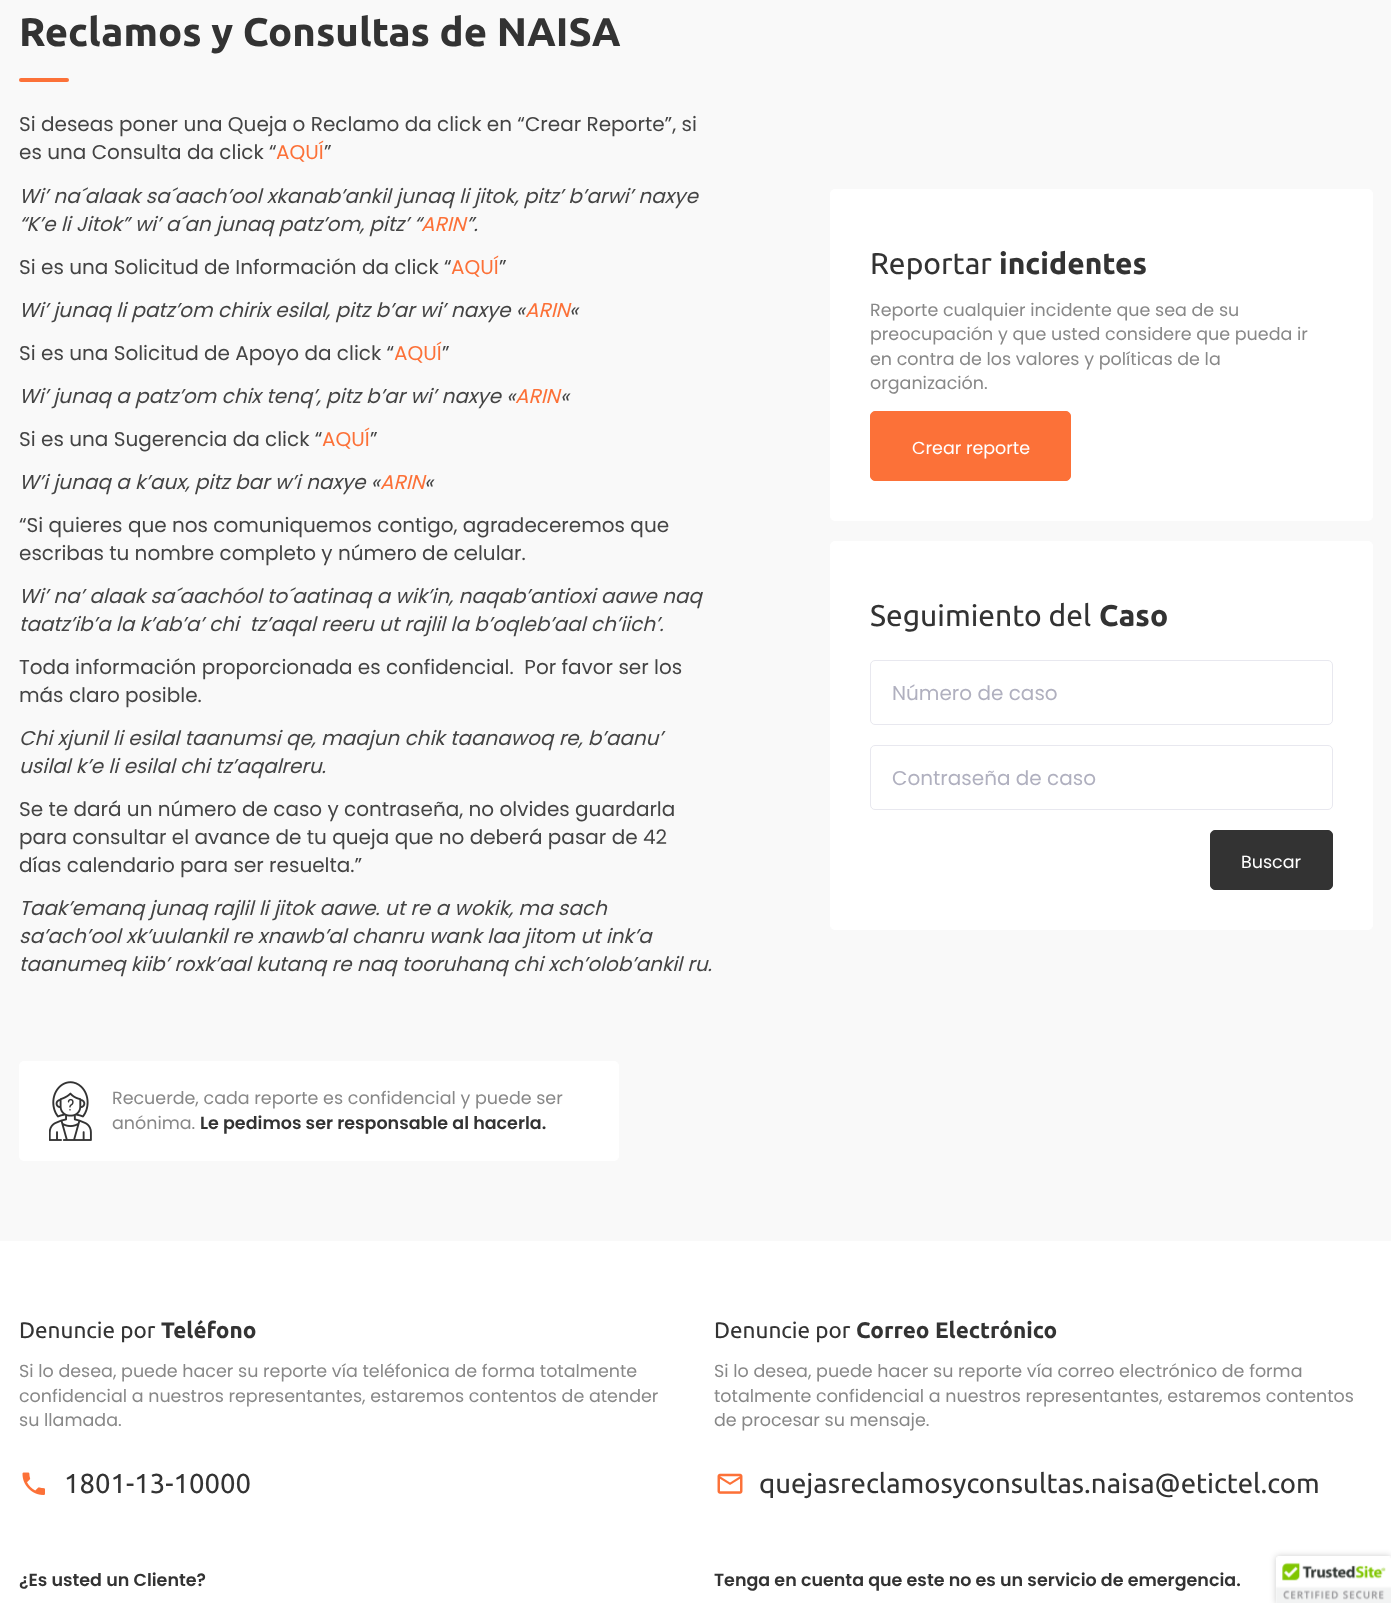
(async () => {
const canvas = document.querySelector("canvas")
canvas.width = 1391
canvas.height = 1603
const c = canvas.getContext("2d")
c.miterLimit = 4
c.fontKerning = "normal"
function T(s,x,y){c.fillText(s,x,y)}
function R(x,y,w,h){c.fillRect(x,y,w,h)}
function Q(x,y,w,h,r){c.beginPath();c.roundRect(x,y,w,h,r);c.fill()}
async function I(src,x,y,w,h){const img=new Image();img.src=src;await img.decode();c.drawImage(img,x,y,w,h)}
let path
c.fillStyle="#fff"
R(0,0,1391,1603)
c.fillStyle="#f9f9f9"
R(0,0,1391,1241)
c.font="bold 40px Ubuntu"
c.fillStyle="#333"
T("Reclamos y Consultas de NAISA",19,46)
c.fillStyle="#fc7138"
Q(19,78,50,4,2)
c.font="20px Poppins"
c.fillStyle="#444"
T("Si deseas poner una Queja o Reclamo da click en “Crear Reporte”, si",19,131)
T("es una Consulta da click “",19,159)
c.fillStyle="#fc7138"
T("AQUÍ",276,159)
c.fillStyle="#444"
T("”",324,159)
c.font="italic 20px Poppins"
T("Wi’ na´alaak sa´aach’ool xkanab’ankil junaq li jitok, pitz’ b’arwi’ naxye",19,203)
T("“K’e li Jitok” wi’ a´an junaq patz’om, pitz’ “",19,231)
c.fillStyle="#fc7138"
T("ARIN",421,231)
c.fillStyle="#444"
T("”.",466,231)
c.font="20px Poppins"
T("Si es una Solicitud de Información da click “",19,274)
c.fillStyle="#fc7138"
T("AQUÍ",451,274)
c.fillStyle="#444"
T("”",499,274)
c.font="italic 20px Poppins"
T("Wi’ junaq li patz’om chirix esilal, pitz b’ar wi’ naxye «",19,317)
c.fillStyle="#fc7138"
T("ARIN",525,317)
c.fillStyle="#444"
T("«",569,317)
c.font="20px Poppins"
T("Si es una Solicitud de Apoyo da click “",19,360)
c.fillStyle="#fc7138"
T("AQUÍ",394,360)
c.fillStyle="#444"
T("”",442,360)
c.font="italic 20px Poppins"
T("Wi’ junaq a patz’om chix tenq’, pitz b’ar wi’ naxye «",19,403)
c.fillStyle="#fc7138"
T("ARIN",515,403)
c.fillStyle="#444"
T("«",560,403)
c.font="20px Poppins"
T("Si es una Sugerencia da click “",19,446)
c.fillStyle="#fc7138"
T("AQUÍ",322,446)
c.fillStyle="#444"
T("”",370,446)
c.font="italic 20px Poppins"
T("W’i junaq a k’aux, pitz bar w’i naxye «",19,489)
c.fillStyle="#fc7138"
T("ARIN",380,489)
c.fillStyle="#444"
T("«",424,489)
c.font="20px Poppins"
T("“Si quieres que nos comuniquemos contigo, agradeceremos que",19,532)
T("escribas tu nombre completo y número de celular.",19,560)
c.font="italic 20px Poppins"
T("Wi’ na’ alaak sa´aachóol to´aatinaq a wik’in, naqab’antioxi aawe naq",19,603)
T("taatz’ib’a la k’ab’a’ chi  tz’aqal reeru ut rajlil la b’oqleb’aal ch’iich’.",19,631)
c.font="20px Poppins"
T("Toda información proporcionada es confidencial.  Por favor ser los",19,674)
T("más claro posible.",19,702)
c.font="italic 20px Poppins"
T("Chi xjunil li esilal taanumsi qe, maajun chik taanawoq re, b’aanu’",19,745)
T("usilal k’e li esilal chi tz’aqalreru.",19,773)
c.font="20px Poppins"
T("Se te dará un número de caso y contraseña, no olvides guardarla",19,816)
T("para consultar el avance de tu queja que no deberá pasar de 42",19,844)
T("días calendario para ser resuelta.”",19,872)
c.font="italic 20px Poppins"
T("Taak’emanq junaq rajlil li jitok aawe. ut re a wokik, ma sach",19,915)
T("sa’ach’ool xk’uulankil re xnawb’al chanru wank laa jitom ut ink’a",19,943)
T("taanumeq kiib’ roxk’aal kutanq re naq tooruhanq chi xch’olob’ankil ru.",19,971)
c.fillStyle="#fff"
Q(19,1061,600,100,5)
await I("1.png",49,1081,43,60)
c.font="17.5px Poppins"
c.fillStyle="#888"
T("Recuerde, cada reporte es confidencial y puede ser",112,1104)
T("anónima.",112,1129)
c.font="600 17.5px Poppins"
c.fillStyle="#333"
T("Le pedimos ser responsable al hacerla.",200,1129)
c.fillStyle="#fff"
Q(830,189,543,332,5)
c.font="30px Ubuntu"
c.fillStyle="#333"
T("Reportar",870,274)
c.font="bold 30px Ubuntu"
T("incidentes",999,274)
c.font="17.5px Poppins"
c.fillStyle="#888"
T("Reporte cualquier incidente que sea de su",870,316)
T("preocupación y que usted considere que pueda ir",870,340)
T("en contra de los valores y políticas de la",870,365)
T("organización.",870,389)
c.fillStyle="#fc7138"
c.beginPath()
c.roundRect(870.5,411.5,200,69,4.5)
c.fill()
c.strokeStyle="#fc7138"
c.stroke()
c.fillStyle="#fff"
T("Crear reporte",912,454)
Q(830,541,543,389,5)
c.font="30px Ubuntu"
c.fillStyle="#333"
T("Seguimiento del",870,626)
c.font="bold 30px Ubuntu"
T("Caso",1099,626)
c.beginPath()
c.roundRect(870.5,660.5,462,64,4.5)
c.strokeStyle="#e8e8ef"
c.stroke()
c.font="20px Poppins"
c.fillStyle="#b0b0bf"
T("Número de caso",892,700)
c.beginPath()
c.roundRect(870.5,745.5,462,64,4.5)
c.stroke()
T("Contraseña de caso",892,785)
c.fillStyle="#333"
c.beginPath()
c.roundRect(1210.5,830.5,122,59,4.5)
c.fill()
c.strokeStyle="#333"
c.stroke()
c.font="17.5px Poppins"
c.fillStyle="#fff"
T("Buscar",1241,868)
c.font="22.5px Ubuntu"
c.fillStyle="#333"
T("Denuncie por",19,1338)
c.font="bold 22.5px Ubuntu"
T("Teléfono",161,1338)
c.font="17.5px Poppins"
c.fillStyle="#888"
T("Si lo desea, puede hacer su reporte vía teléfonica de forma totalmente",19,1377)
T("confidencial a nuestros representantes, estaremos contentos de atender",19,1402)
T("su llamada.",19,1426)
await I("2.png",22,1472,23,23)
c.font="27.5px Ubuntu"
c.fillStyle="#333"
T("1801-13-10000",64,1493)
c.font="22.5px Ubuntu"
T("Denuncie por",714,1338)
c.font="bold 22.5px Ubuntu"
T("Correo Electrónico",856,1338)
c.font="17.5px Poppins"
c.fillStyle="#888"
T("Si lo desea, puede hacer su reporte vía correo electrónico de forma",714,1377)
T("totalmente confidencial a nuestros representantes, estaremos contentos",714,1402)
T("de procesar su mensaje.",714,1426)
await I("3.png",717,1473,26,21)
c.font="27.5px Ubuntu"
c.fillStyle="#333"
T("quejasreclamosyconsultas.naisa@etictel.com",759,1493)
c.font="600 17.5px Poppins"
T("¿Es usted un Cliente?",19,1586)
T("Tenga en cuenta que este no es un servicio de emergencia.",714,1586)
c.fillStyle="#00000033"
c.filter="blur(3px)"
c.beginPath()
c.roundRect(1276,1556,115,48,2.5)
c.fill()
c.filter="none"
c.fillStyle="#fff"
path = new Path2D("M1278.5 1556h112.5v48h-115v-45.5c0-1.5 1-2.5 2.5-2.5z")
c.fill(path)
await I("4.png",1276,1556,115,47)
})()
